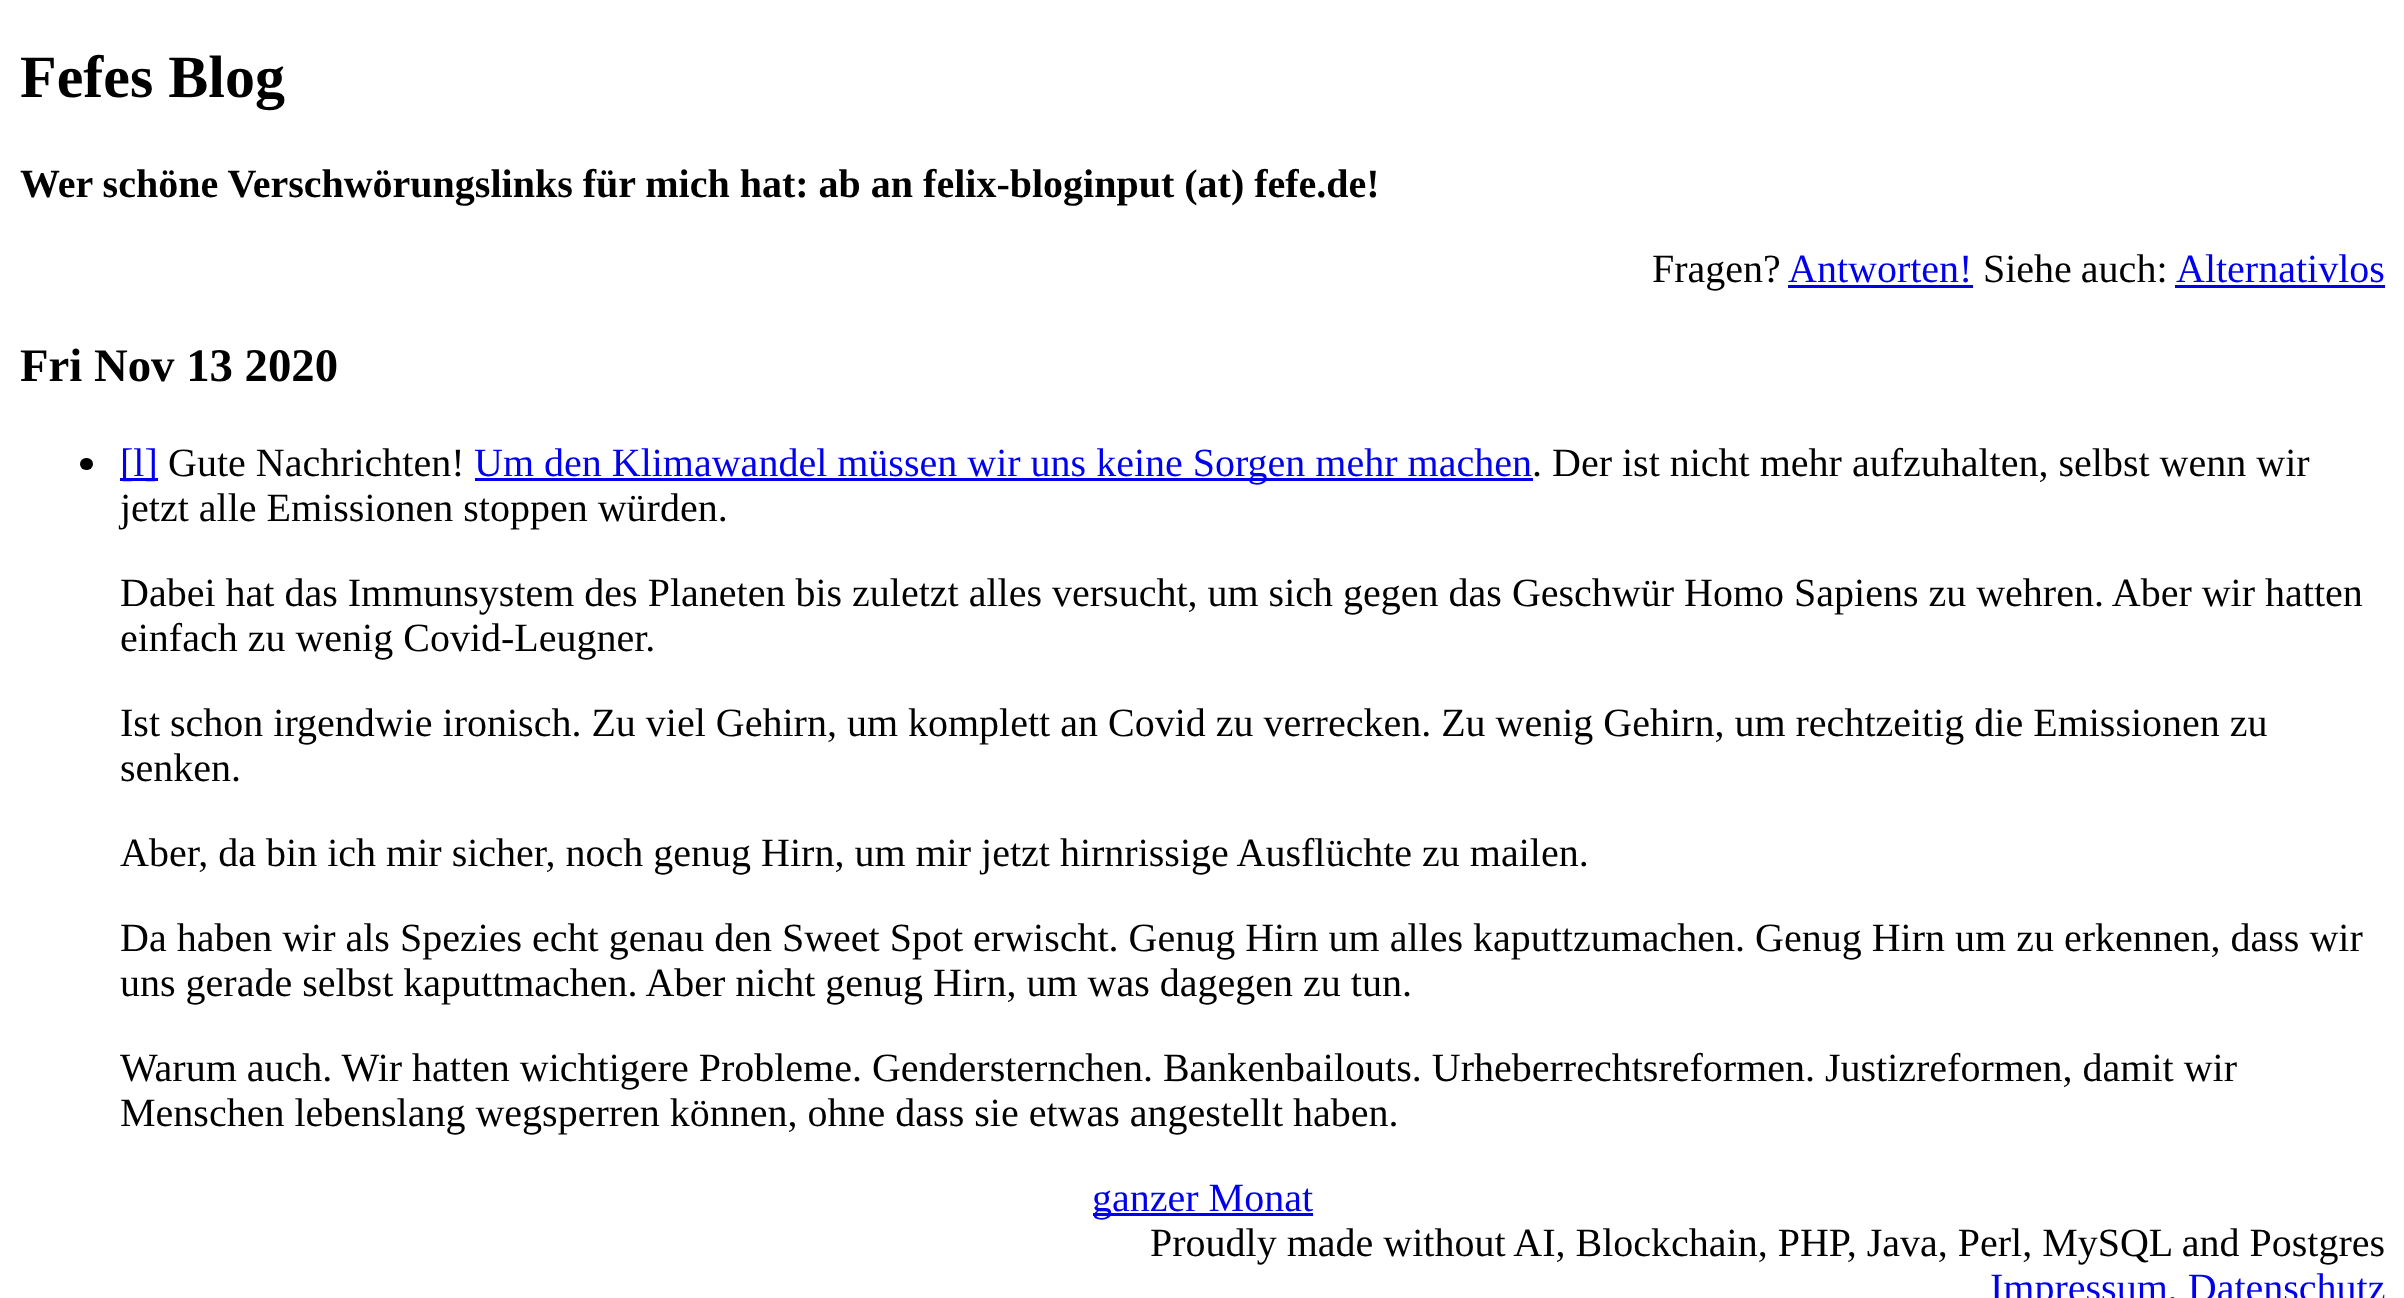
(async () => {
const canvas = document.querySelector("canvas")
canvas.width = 2404
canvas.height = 1298
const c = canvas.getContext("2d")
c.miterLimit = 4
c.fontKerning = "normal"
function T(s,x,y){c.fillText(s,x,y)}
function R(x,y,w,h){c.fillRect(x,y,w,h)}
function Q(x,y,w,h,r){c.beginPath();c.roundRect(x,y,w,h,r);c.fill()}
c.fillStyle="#fff"
R(0,0,2404,1298)
c.font="bold 60px Liberation Serif"
c.fillStyle="#000"
T("Fefes Blog",20,97)
c.font="bold 40px Liberation Serif"
T("Wer schöne Verschwörungslinks für mich hat: ab an felix-bloginput (at) fefe.de!",20,197)
c.font="40px Liberation Serif"
T("Fragen?",1652,282)
c.fillStyle="#00e"
T("Antworten!",1788,282)
R(1788,285,185,3)
c.wordSpacing="-1px"
c.fillStyle="#000"
T("Siehe auch:",1983,282)
c.wordSpacing="0px"
c.fillStyle="#00e"
T("Alternativlos",2176,282)
R(2175,285,210,3)
c.font="bold 46.75px Liberation Serif"
c.fillStyle="#000"
T("Fri Nov 13 2020",20,381)
Q(80,458,13,12,6)
c.fillStyle="#00e"
R(120,478,38,3)
c.font="40px Liberation Serif"
T("[l]",120,476)
c.fillStyle="#000"
T("Gute Nachrichten!",168,476)
c.fillStyle="#00e"
R(475,478,1058,3)
T("Um den Klimawandel müssen wir uns keine Sorgen mehr machen",474,476)
c.fillStyle="#000"
T(". Der ist nicht mehr aufzuhalten, selbst wenn wir",1532,476)
T("jetzt alle Emissionen stoppen würden.",120,521)
T("Dabei hat das Immunsystem des Planeten bis zuletzt alles versucht, um sich gegen das Geschwür Homo Sapiens zu wehren. Aber wir hatten",120,606)
T("einfach zu wenig Covid-Leugner.",120,651)
T("Ist schon irgendwie ironisch. Zu viel Gehirn, um komplett an Covid zu verrecken. Zu wenig Gehirn, um rechtzeitig die Emissionen zu",120,736)
T("senken.",120,781)
T("Aber, da bin ich mir sicher, noch genug Hirn, um mir jetzt hirnrissige Ausflüchte zu mailen.",120,866)
T("Da haben wir als Spezies echt genau den Sweet Spot erwischt. Genug Hirn um alles kaputtzumachen. Genug Hirn um zu erkennen, dass wir",120,951)
T("uns gerade selbst kaputtmachen. Aber nicht genug Hirn, um was dagegen zu tun.",120,996)
T("Warum auch. Wir hatten wichtigere Probleme. Gendersternchen. Bankenbailouts. Urheberrechtsreformen. Justizreformen, damit wir",120,1081)
T("Menschen lebenslang wegsperren können, ohne dass sie etwas angestellt haben.",120,1126)
c.fillStyle="#00e"
R(1093,1213,220,3)
T("ganzer Monat",1092,1211)
c.fillStyle="#000"
T("Proudly made without AI, Blockchain, PHP, Java, Perl, MySQL and Postgres",1150,1256)
c.fillStyle="#00e"
T("Impressum, Datenschutz",1990,1301)
})()
